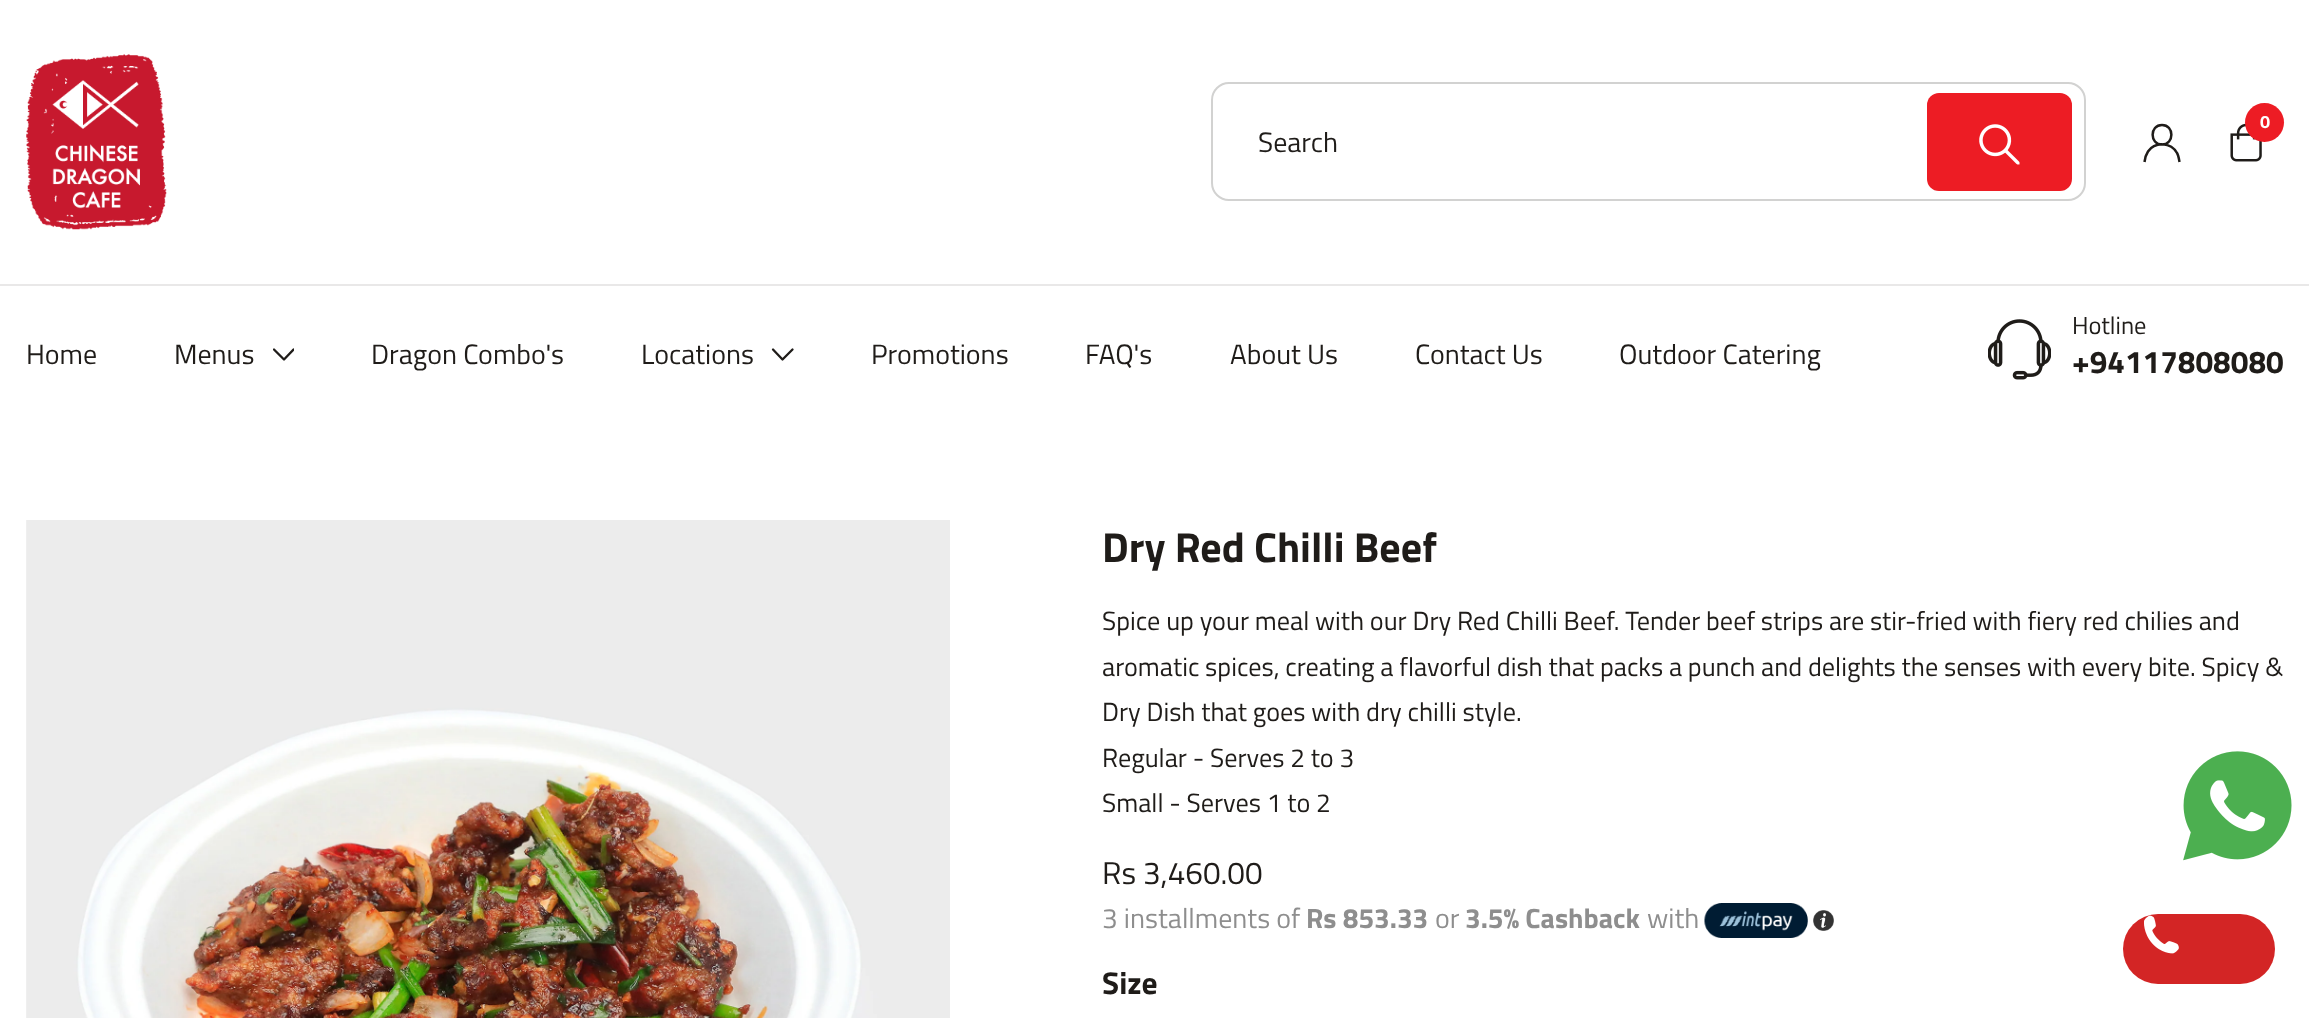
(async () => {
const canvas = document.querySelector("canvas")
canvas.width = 2309
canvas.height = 1018
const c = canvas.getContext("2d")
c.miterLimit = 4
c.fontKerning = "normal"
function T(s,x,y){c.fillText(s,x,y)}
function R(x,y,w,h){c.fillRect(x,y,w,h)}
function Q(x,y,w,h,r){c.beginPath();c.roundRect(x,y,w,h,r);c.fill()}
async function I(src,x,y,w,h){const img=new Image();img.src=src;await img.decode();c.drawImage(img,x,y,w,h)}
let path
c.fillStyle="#fff"
R(0,0,2309,1018)
await I("1.png",26,54,141,176)
c.beginPath()
c.roundRect(1212,83,873,117,17)
c.strokeStyle="#d2d2d1"
c.lineWidth=2
c.stroke()
c.font="28px Titillium Web"
c.fillStyle="#1f1c19"
T("Search",1258,152)
c.fillStyle="#ed1c24"
Q(1927,93,145,98,12)
await I("2.png",1979,124,41,41)
path = new Path2D("M2162 144.5c12.5 0 12.5-19.5 0-19.5c-12.5 0-12.5 19.5 0 19.5zm-17.5 17.5c.5-4 1.5-7.5 3.5-10.5c7-10 23-9.5 29 1.5c1.5 2.5 2 6 2.5 9")
c.strokeStyle="#1f1c19"
c.lineWidth=2.5
c.stroke(path)
await I("3.png",2230,123,32,39)
c.beginPath()
c.arc(2264.5,122.5,19.5,0,7)
c.fill()
c.font="bold 18px Titillium Web"
c.fillStyle="#fff"
T("0",2260,128)
c.fillStyle="#e9e8e8"
R(0,284,2309,2)
c.font="28px Titillium Web"
c.fillStyle="#1f1c19"
T("Home",26,364)
T("Menus",174,364)
c.save()
c.beginPath()
c.rect(273,334,21,41)
c.clip()
path = new Path2D("M293.5 349.5l-9.5 10l-10-10")
c.lineWidth=2.3
c.lineCap="round"
c.lineJoin="round"
c.stroke(path)
c.restore()
T("Dragon Combo's",371,364)
T("Locations",641,364)
path = new Path2D("M792.5 349.5l-10 10l-9.5-10")
c.lineWidth=2.3
c.lineCap="round"
c.lineJoin="round"
c.stroke(path)
T("Promotions",871,364)
T("FAQ's",1085,364)
T("About Us",1230,364)
T("Contact Us",1415,364)
T("Outdoor Catering",1619,364)
await I("4.png",1988,319,63,61)
c.font="24.5px Titillium Web"
T("Hotline",2072,334)
c.font="bold 31.5px Titillium Web"
T("+94117808080",2072,373)
await I("5.png",26,520,924,498)
await I("6.png",26,520,835,498)
c.font="bold 42px Titillium Web"
T("Dry Red Chilli Beef",1102,562)
c.font="26.25px Titillium Web"
T("Spice up your meal with our Dry Red Chilli Beef. Tender beef strips are stir-fried with fiery red chilies and",1102,630)
T("aromatic spices, creating a flavorful dish that packs a punch and delights the senses with every bite. Spicy &",1102,676)
T("Dry Dish that goes with dry chilli style.",1102,721)
T("Regular - Serves 2 to 3",1102,767)
T("Small - Serves 1 to 2",1102,812)
c.font="31.5px Titillium Web"
T("Rs 3,460.00",1102,884)
c.font="28px Titillium Web"
c.fillStyle="#8e8e8e"
T("3 installments of",1102,928)
c.font="bold 28px Titillium Web"
T("Rs 853.33",1306,928)
c.font="28px Titillium Web"
T("or",1435,928)
c.font="bold 28px Titillium Web"
T("3.5% Cashback",1465,928)
c.font="28px Titillium Web"
T("with",1647,928)
await I("7.png",1704,903,104,35)
await I("8.png",1813,910,21,21)
c.font="bold 31.5px Titillium Web"
c.fillStyle="#1f1c19"
T("Size",1102,994)
await I("9.png",2183,751,109,110)
c.fillStyle="#d32525"
Q(2123,914,152,70,35)
await I("10.png",2144,915,35,39)
})()
